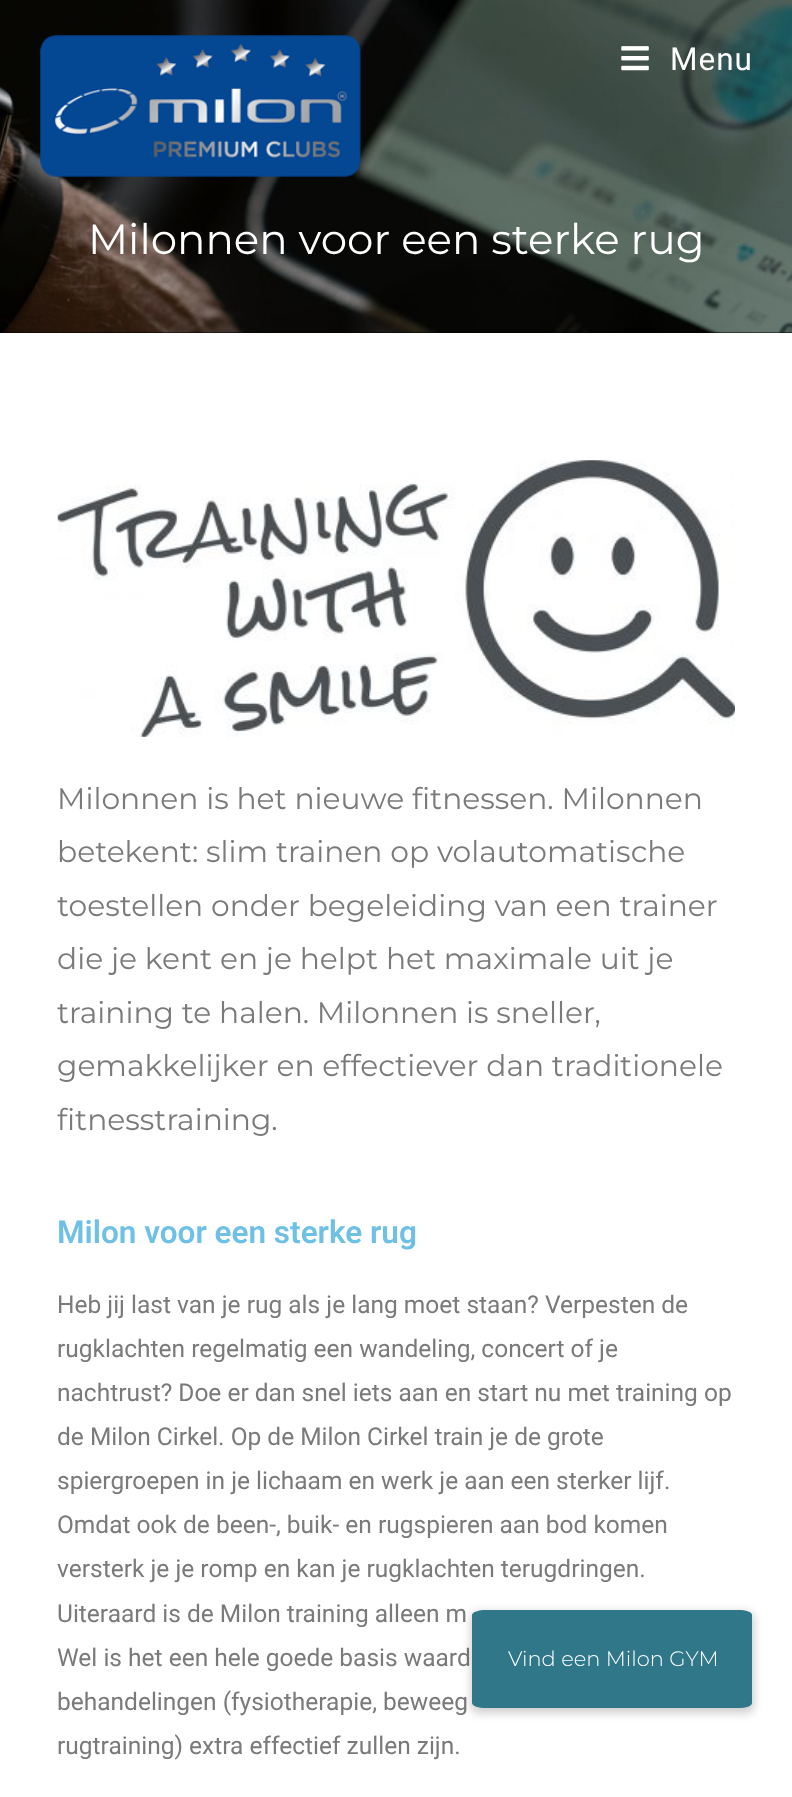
(async () => {
const canvas = document.querySelector("canvas")
canvas.width = 792
canvas.height = 1797
const c = canvas.getContext("2d")
c.miterLimit = 4
c.fontKerning = "normal"
function T(s,x,y){c.fillText(s,x,y)}
function R(x,y,w,h){c.fillRect(x,y,w,h)}
async function I(src,x,y,w,h){const img=new Image();img.src=src;await img.decode();c.drawImage(img,x,y,w,h)}
let path
c.fillStyle="#fff"
R(0,0,792,1797)
c.fillStyle="#000"
R(0,332,792,1)
await I("3.png",0,0,792,333)
await I("1.png",40,35,321,142)
await I("2.png",621,46,28,25)
c.letterSpacing="1px"
c.font="31.5px Roboto"
c.fillStyle="#fff"
T("Menu",670,70)
c.letterSpacing="0px"
c.font="42px Montserrat"
T("Milonnen voor een sterke rug",88,254)
await I("4.png",57,460,678,277)
c.font="29.75px Montserrat"
c.fillStyle="#7a7a7a"
T("Milonnen is het nieuwe fitnessen. Milonnen",57,809)
T("betekent: slim trainen op volautomatische",57,862)
T("toestellen onder begeleiding van een trainer",57,916)
T("die je kent en je helpt het maximale uit je",57,969)
T("training te halen. Milonnen is sneller,",57,1023)
T("gemakkelijker en effectiever dan traditionele",57,1076)
T("fitnesstraining.",57,1130)
c.font="600 31.5px Roboto"
c.fillStyle="#6ec1e4"
T("Milon voor een sterke rug",57,1243)
c.font="24.5px Roboto"
c.fillStyle="#7a7a7a"
T("Heb jij last van je rug als je lang moet staan? Verpesten de",57,1313)
T("rugklachten regelmatig een wandeling, concert of je",57,1357)
T("nachtrust? Doe er dan snel iets aan en start nu met training op",57,1401)
T("de Milon Cirkel. Op de Milon Cirkel train je de grote",57,1445)
T("spiergroepen in je lichaam en werk je aan een sterker lijf.",57,1489)
T("Omdat ook de been-, buik- en rugspieren aan bod komen",57,1533)
T("versterk je je romp en kan je rugklachten terugdringen.",57,1577)
T("Uiteraard is de Milon training alleen m",57,1622)
T("Wel is het een hele goede basis waard",57,1666)
T("behandelingen (fysiotherapie, beweeg",57,1710)
T("rugtraining) extra effectief zullen zijn.",57,1754)
c.fillStyle="#00000033"
c.filter="blur(5px)"
c.beginPath()
c.roundRect(471,1612,283,101,7)
c.fill()
c.filter="none"
c.fillStyle="#2f7789"
path = new Path2D("M486 1610h252c8 0 14 2 14 5v88c0 3-6 5-14 5h-252c-7 0-14-2-14-5v-88c0-3 7-5 14-5z")
c.fill(path)
c.font="300 21px Montserrat"
c.fillStyle="#fff"
T("Vind een Milon GYM",508,1666)
})()
